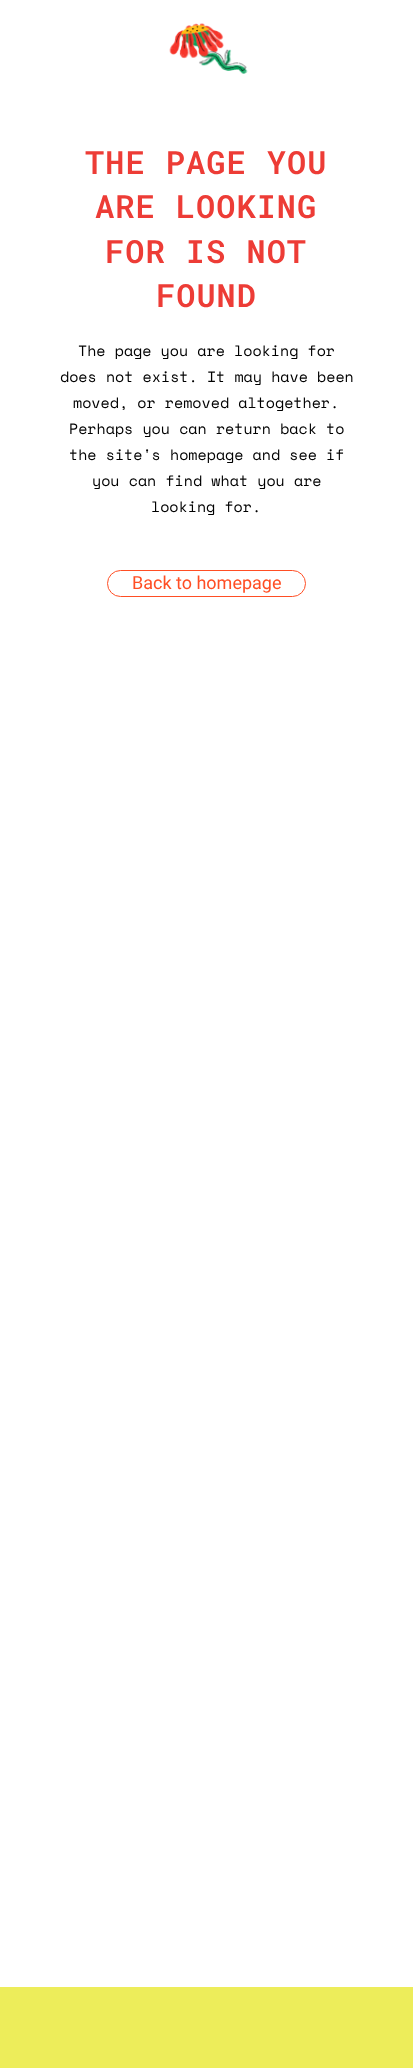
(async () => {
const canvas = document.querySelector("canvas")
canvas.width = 413
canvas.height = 2068
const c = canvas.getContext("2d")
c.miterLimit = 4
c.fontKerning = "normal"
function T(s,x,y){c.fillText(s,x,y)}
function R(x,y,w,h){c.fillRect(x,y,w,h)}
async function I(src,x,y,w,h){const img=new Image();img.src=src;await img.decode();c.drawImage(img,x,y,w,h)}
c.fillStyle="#fff"
R(0,0,413,2068)
await I("1.png",169,23,79,51)
c.letterSpacing="1px"
c.font="600 32px Roboto Mono"
c.fillStyle="#ed3c36"
T("THE PAGE YOU",85,174)
T("ARE LOOKING",95,218)
T("FOR IS NOT",105,263)
T("FOUND",156,307)
c.letterSpacing="0px"
c.font="15px Space Mono"
c.fillStyle="#000"
T("The page you are looking for",78,356)
T("does not exist. It may have been",60,382)
T("moved, or removed altogether.",73,408)
T("Perhaps you can return back to",69,434)
T("the site's homepage and see if",69,460)
T("you can find what you are",92,486)
T("looking for.",151,512)
c.beginPath()
c.roundRect(107.5,570.5,198,26,13)
c.strokeStyle="#ff4e24"
c.stroke()
c.font="18px Heebo"
c.fillStyle="#ff4e24"
T("Back to homepage",132,589)
c.fillStyle="#eded5a"
R(0,1987,413,81)
})()
